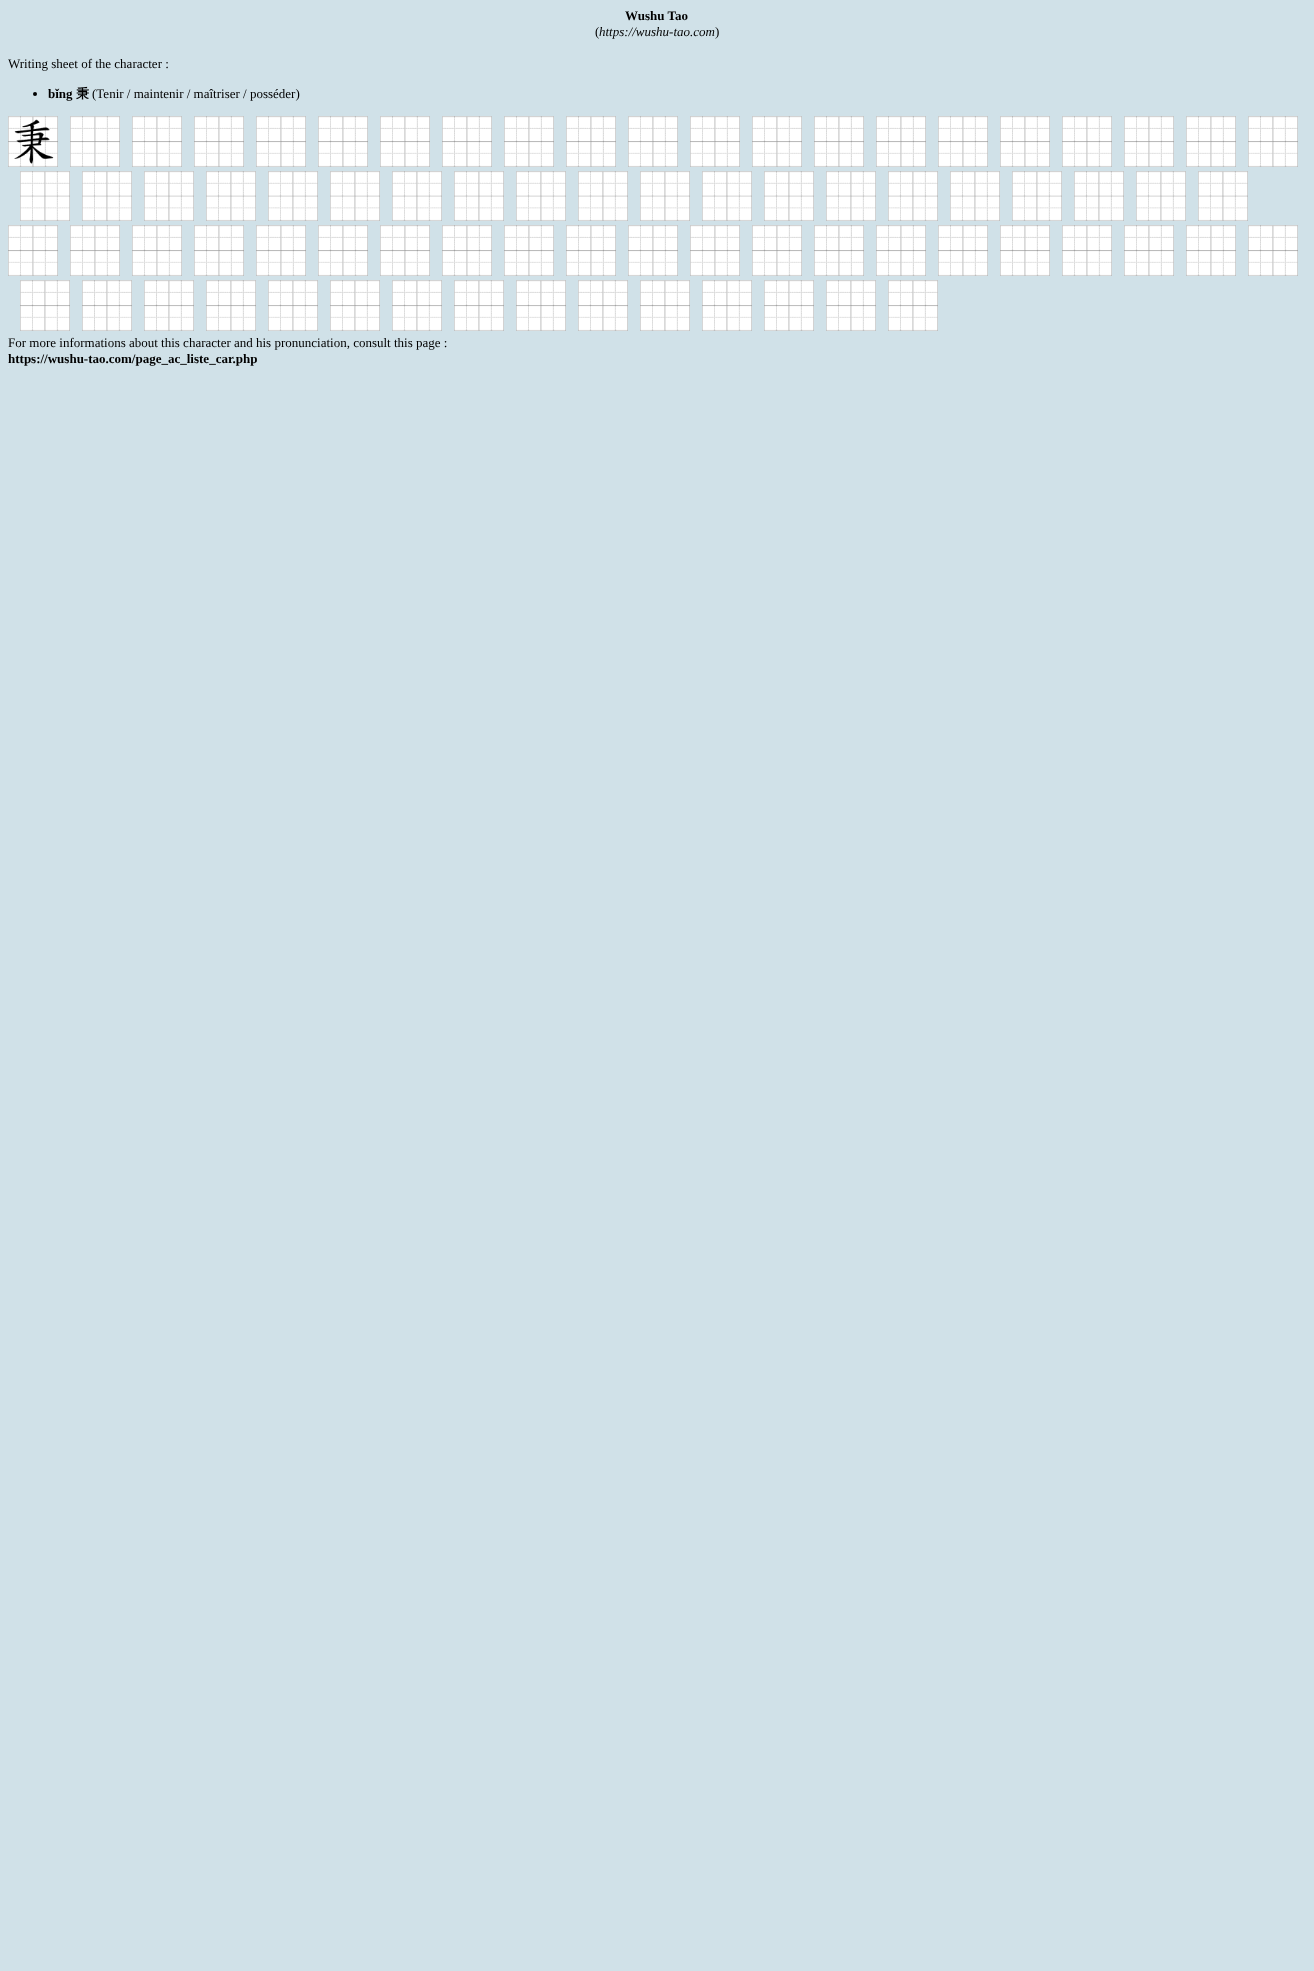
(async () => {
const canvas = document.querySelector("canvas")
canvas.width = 1314
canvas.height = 1971
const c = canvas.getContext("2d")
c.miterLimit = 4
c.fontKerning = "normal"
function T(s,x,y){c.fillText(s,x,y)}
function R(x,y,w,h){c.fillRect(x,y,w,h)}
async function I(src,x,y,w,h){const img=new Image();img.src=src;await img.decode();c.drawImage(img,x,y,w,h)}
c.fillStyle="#d0e1e8"
R(0,0,1314,1971)
c.font="bold 13px Liberation Serif"
c.fillStyle="#000"
T("Wushu Tao",625,20)
c.font="13px Liberation Serif"
T("(",595,36)
c.font="italic 13px Liberation Serif"
T("https://wushu-tao.com",599,36)
c.font="13px Liberation Serif"
T(")",715,36)
T("Writing sheet of the character :",8,68)
c.beginPath()
c.arc(35,94,2,0,7)
c.fill()
c.font="bold 13px Liberation Serif"
T("bǐng",48,98)
c.font="bold 13px WenQuanYi Zen Hei"
T("秉",76,98)
c.font="13px Liberation Serif"
T("(Tenir / maintenir / maîtriser / posséder)",92,98)
await I("1.png",8,116,50,51)
await I("2.png",70,116,50,51)
await I("2.png",132,116,50,51)
await I("2.png",194,116,50,51)
await I("2.png",256,116,50,51)
await I("2.png",318,116,50,51)
await I("2.png",380,116,50,51)
await I("3.png",442,116,50,51)
await I("2.png",504,116,50,51)
await I("3.png",566,116,50,51)
await I("2.png",628,116,50,51)
await I("2.png",690,116,50,51)
await I("2.png",752,116,50,51)
await I("3.png",814,116,50,51)
await I("3.png",876,116,50,51)
await I("2.png",938,116,50,51)
await I("4.png",1000,116,50,51)
await I("2.png",1062,116,50,51)
await I("2.png",1124,116,50,51)
await I("2.png",1186,116,50,51)
await I("5.png",1248,116,50,51)
await I("6.png",20,171,50,50)
await I("7.png",82,171,50,50)
await I("7.png",144,171,50,50)
await I("7.png",206,171,50,50)
await I("6.png",268,171,50,50)
await I("6.png",330,171,50,50)
await I("6.png",392,171,50,50)
await I("6.png",454,171,50,50)
await I("6.png",516,171,50,50)
await I("6.png",578,171,50,50)
await I("6.png",640,171,50,50)
await I("6.png",702,171,50,50)
await I("6.png",764,171,50,50)
await I("6.png",826,171,50,50)
await I("6.png",888,171,50,50)
await I("7.png",950,171,50,50)
await I("6.png",1012,171,50,50)
await I("7.png",1074,171,50,50)
await I("6.png",1136,171,50,50)
await I("6.png",1198,171,50,50)
await I("2.png",8,225,50,51)
await I("2.png",70,225,50,51)
await I("2.png",132,225,50,51)
await I("2.png",194,225,50,51)
await I("2.png",256,225,50,51)
await I("2.png",318,225,50,51)
await I("2.png",380,225,50,51)
await I("3.png",442,225,50,51)
await I("2.png",504,225,50,51)
await I("3.png",566,225,50,51)
await I("2.png",628,225,50,51)
await I("2.png",690,225,50,51)
await I("2.png",752,225,50,51)
await I("3.png",814,225,50,51)
await I("3.png",876,225,50,51)
await I("2.png",938,225,50,51)
await I("4.png",1000,225,50,51)
await I("2.png",1062,225,50,51)
await I("2.png",1124,225,50,51)
await I("2.png",1186,225,50,51)
await I("5.png",1248,225,50,51)
await I("8.png",20,280,50,51)
await I("9.png",82,280,50,51)
await I("9.png",144,280,50,51)
await I("9.png",206,280,50,51)
await I("8.png",268,280,50,51)
await I("8.png",330,280,50,51)
await I("8.png",392,280,50,51)
await I("8.png",454,280,50,51)
await I("8.png",516,280,50,51)
await I("8.png",578,280,50,51)
await I("8.png",640,280,50,51)
await I("8.png",702,280,50,51)
await I("8.png",764,280,50,51)
await I("8.png",826,280,50,51)
await I("8.png",888,280,50,51)
T("For more informations about this character and his pronunciation, consult this page :",8,347)
c.font="bold 13px Liberation Serif"
T("https://wushu-tao.com/page_ac_liste_car.php",8,363)
c.fillStyle="#d8e6ec"
R(8,367,1,1)
})()
